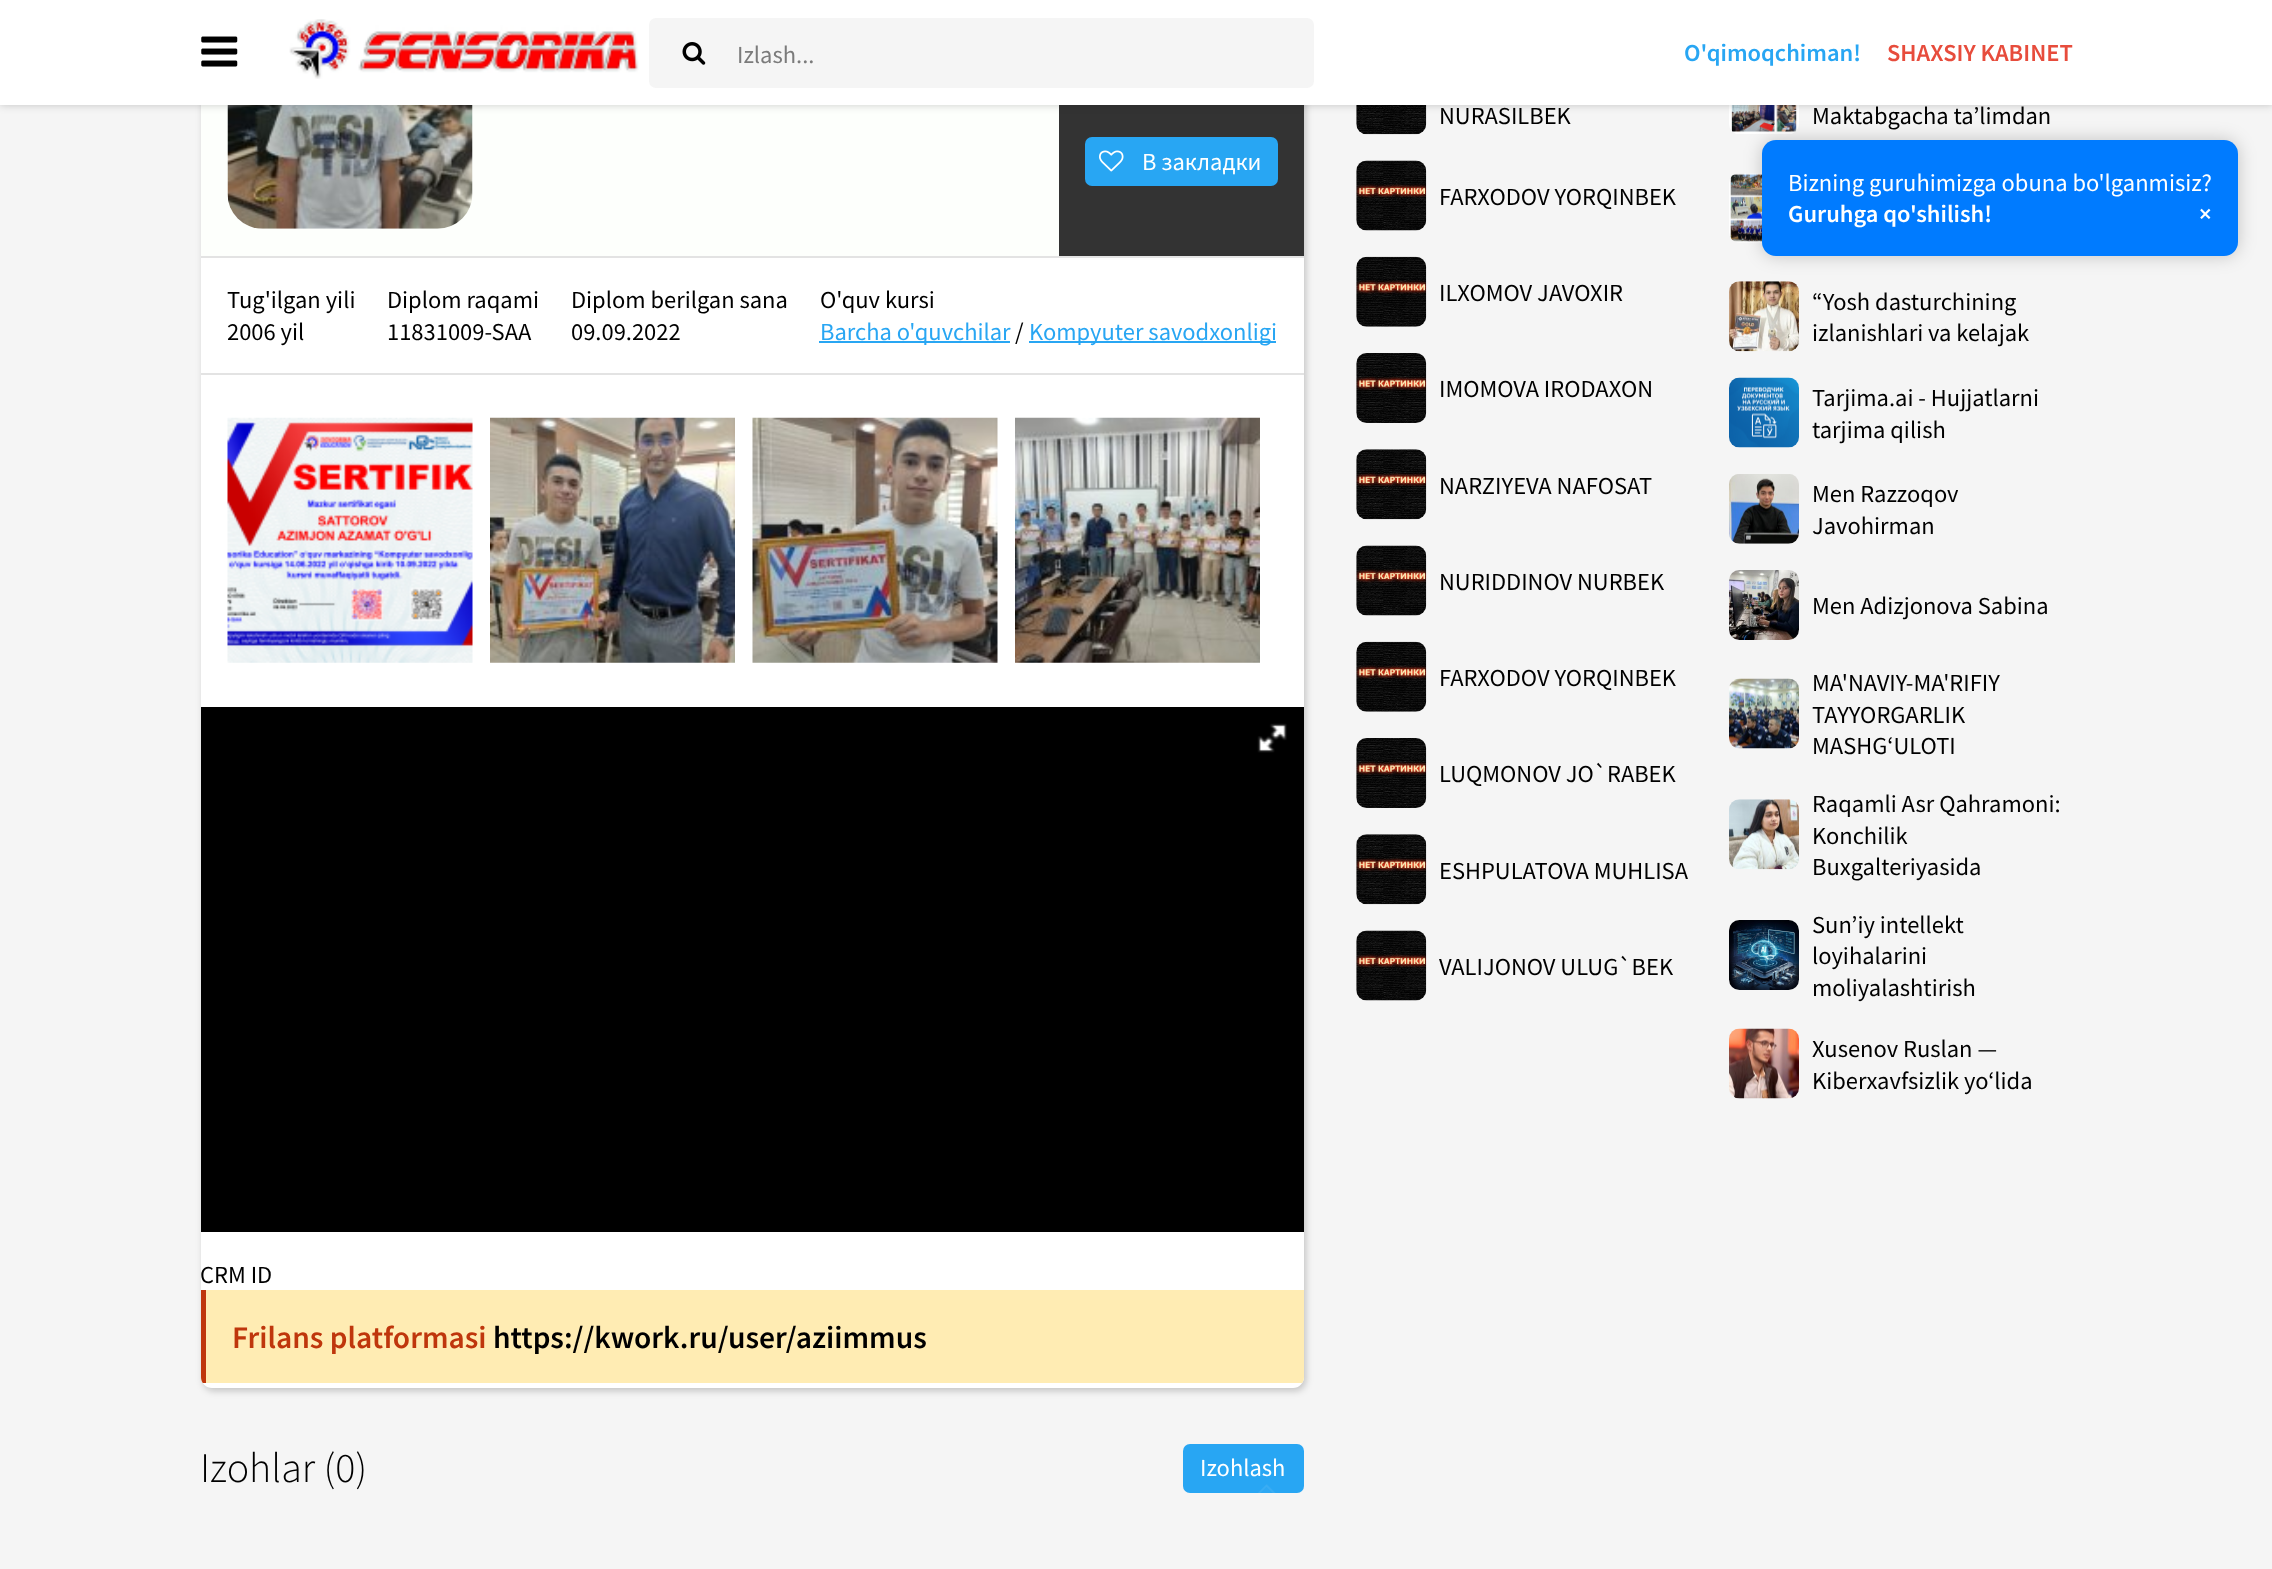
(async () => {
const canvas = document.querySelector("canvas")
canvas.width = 2272
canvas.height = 1569
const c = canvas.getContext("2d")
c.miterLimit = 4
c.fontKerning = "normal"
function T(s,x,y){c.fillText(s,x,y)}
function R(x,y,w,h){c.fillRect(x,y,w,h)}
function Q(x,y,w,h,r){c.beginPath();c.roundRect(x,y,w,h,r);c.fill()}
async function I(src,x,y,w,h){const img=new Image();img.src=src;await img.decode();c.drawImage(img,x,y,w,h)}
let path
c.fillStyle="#f5f5f5"
R(0,0,2272,1569)
c.fillStyle="#00000033"
c.filter="blur(3.5px)"
c.beginPath()
c.roundRect(203,-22,1103,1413,11)
c.fill()
c.filter="none"
c.fillStyle="#fff"
Q(201,-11,1103,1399,11)
c.fillStyle="#333"
R(1059,105,245,151)
c.fillStyle="#fdfffc"
R(201,105,858,151)
await I("4.png",227,105,246,124)
await I("11.png",1356,105,71,30)
await I("19.png",1729,105,70,29)
c.fillStyle="#00000033"
c.filter="blur(4.5px)"
c.beginPath()
c.rect(0,0,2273,105)
c.fill()
c.filter="none"
c.fillStyle="#fff"
R(0,0,2272,105)
await I("1.png",201,36,37,31)
await I("2.png",289,19,350,60)
c.fillStyle="#f5f5f5"
Q(649,18,665,70,7)
await I("3.png",682,42,24,23)
c.font="24.5px Source Sans Pro"
c.fillStyle="#7b7b7b"
T("Izlash...",737,63)
c.font="600 24.5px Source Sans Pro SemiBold"
c.fillStyle="#28a6f3"
T("O'qimoqchiman!",1684,61)
c.fillStyle="#e74c3c"
T("SHAXSIY KABINET",1887,61)
c.fillStyle="#e3e3e3"
R(201,256,1103,2)
c.fillStyle="#28a6f3"
Q(1085,137,193,49,7)
await I("5.png",1099,150,25,22)
c.font="24.5px Source Sans Pro"
c.fillStyle="#fff"
T("В закладки",1142,170)
c.fillStyle="#e3e3e3"
R(201,373,1103,2)
c.fillStyle="#000"
T("Tug'ilgan yili",227,308)
T("2006 yil",227,340)
T("Diplom raqami",387,308)
T("11831009-SAA",387,340)
T("Diplom berilgan sana",571,308)
T("09.09.2022",571,340)
T("O'quv kursi",820,308)
c.fillStyle="#28a6f3"
R(819,341,191,2)
T("Barcha o'quvchilar",820,340)
c.fillStyle="#000"
T("/",1015,340)
c.fillStyle="#28a6f3"
R(1029,341,247,2)
T("Kompyuter savodxonligi",1029,340)
await I("6.png",227,417,246,246)
await I("7.png",490,417,245,246)
await I("8.png",752,417,246,246)
await I("9.png",1015,417,245,246)
c.fillStyle="#000"
R(201,707,1103,525)
await I("10.png",1257,723,30,30)
T("CRM ID",200,1283)
c.save()
c.beginPath()
c.roundRect(201,-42,1103,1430,11)
c.clip()
c.fillStyle="#ffecb3"
R(201,1290,1103,93)
c.fillStyle="#bf360c"
R(201,1290,5,93)
c.restore()
c.font="600 31.5px Source Sans Pro SemiBold"
c.fillStyle="#bf360c"
T("Frilans platformasi",232,1348)
c.fillStyle="#000"
T("https://kwork.ru/user/aziimmus",493,1348)
c.font="300 42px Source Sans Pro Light"
T("Izohlar (0)",200,1482)
c.fillStyle="#28a6f3"
Q(1183,1444,121,49,7)
c.font="24.5px Source Sans Pro"
c.fillStyle="#fff"
T("Izohlash",1200,1476)
c.fillStyle="#000"
T("NURASILBEK",1439,124)
await I("12.png",1356,160,71,71)
T("FARXODOV YORQINBEK",1439,205)
await I("13.png",1356,256,71,71)
T("ILXOMOV JAVOXIR",1439,301)
await I("14.png",1356,353,71,70)
T("IMOMOVA IRODAXON",1439,397)
await I("15.png",1356,449,71,71)
T("NARZIYEVA NAFOSAT",1439,494)
await I("16.png",1356,545,71,71)
T("NURIDDINOV NURBEK",1439,590)
await I("17.png",1356,641,71,71)
T("FARXODOV YORQINBEK",1439,686)
await I("14.png",1356,738,71,70)
T("LUQMONOV JO`RABEK",1439,782)
await I("18.png",1356,834,71,71)
T("ESHPULATOVA MUHLISA",1439,879)
await I("12.png",1356,930,71,71)
T("VALIJONOV ULUG`BEK",1439,975)
T("Maktabgacha ta’limdan",1812,124)
await I("20.png",1729,173,34,70)
await I("21.png",1729,281,70,71)
T("“Yosh dasturchining",1812,310)
T("izlanishlari va kelajak",1812,341)
await I("22.png",1729,377,70,71)
T("Tarjima.ai - Hujjatlarni",1812,406)
T("tarjima qilish",1812,438)
await I("23.png",1729,474,70,70)
T("Men Razzoqov",1812,502)
T("Javohirman",1812,534)
await I("24.png",1729,570,70,70)
T("Men Adizjonova Sabina",1812,614)
await I("25.png",1729,678,70,71)
T("MA'NAVIY-MA'RIFIY",1812,691)
T("TAYYORGARLIK",1812,723)
T("MASHG‘ULOTI",1812,754)
await I("26.png",1729,799,70,71)
T("Raqamli Asr Qahramoni:",1812,812)
T("Konchilik",1812,844)
T("Buxgalteriyasida",1812,875)
await I("27.png",1729,920,70,70)
T("Sun’iy intellekt",1812,933)
T("loyihalarini",1812,964)
T("moliyalashtirish",1812,996)
await I("28.png",1729,1028,70,71)
T("Xusenov Ruslan —",1812,1057)
T("Kiberxavfsizlik yo‘lida",1812,1089)
c.fillStyle="#00000033"
c.filter="blur(9px)"
c.beginPath()
c.roundRect(1762,140,476,116,14)
c.fill()
c.filter="none"
c.fillStyle="#007bff"
Q(1762,140,476,116,14)
c.fillStyle="#fff"
T("Bizning guruhimizga obuna bo'lganmisiz?",1788,191)
c.font="600 24.5px Source Sans Pro SemiBold"
T("Guruhga qo'shilish!",1788,222)
T("×",2199,222)
c.fillStyle="#ffffff08"
path = new Path2D("M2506 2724l-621 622l-1240-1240l622-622z")
c.fill(path)
path = new Path2D("M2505 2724.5l-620 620l-1238.5-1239l620-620z")
c.strokeStyle="#ffffff0f"
c.lineWidth=1.8
c.stroke(path)
})()
